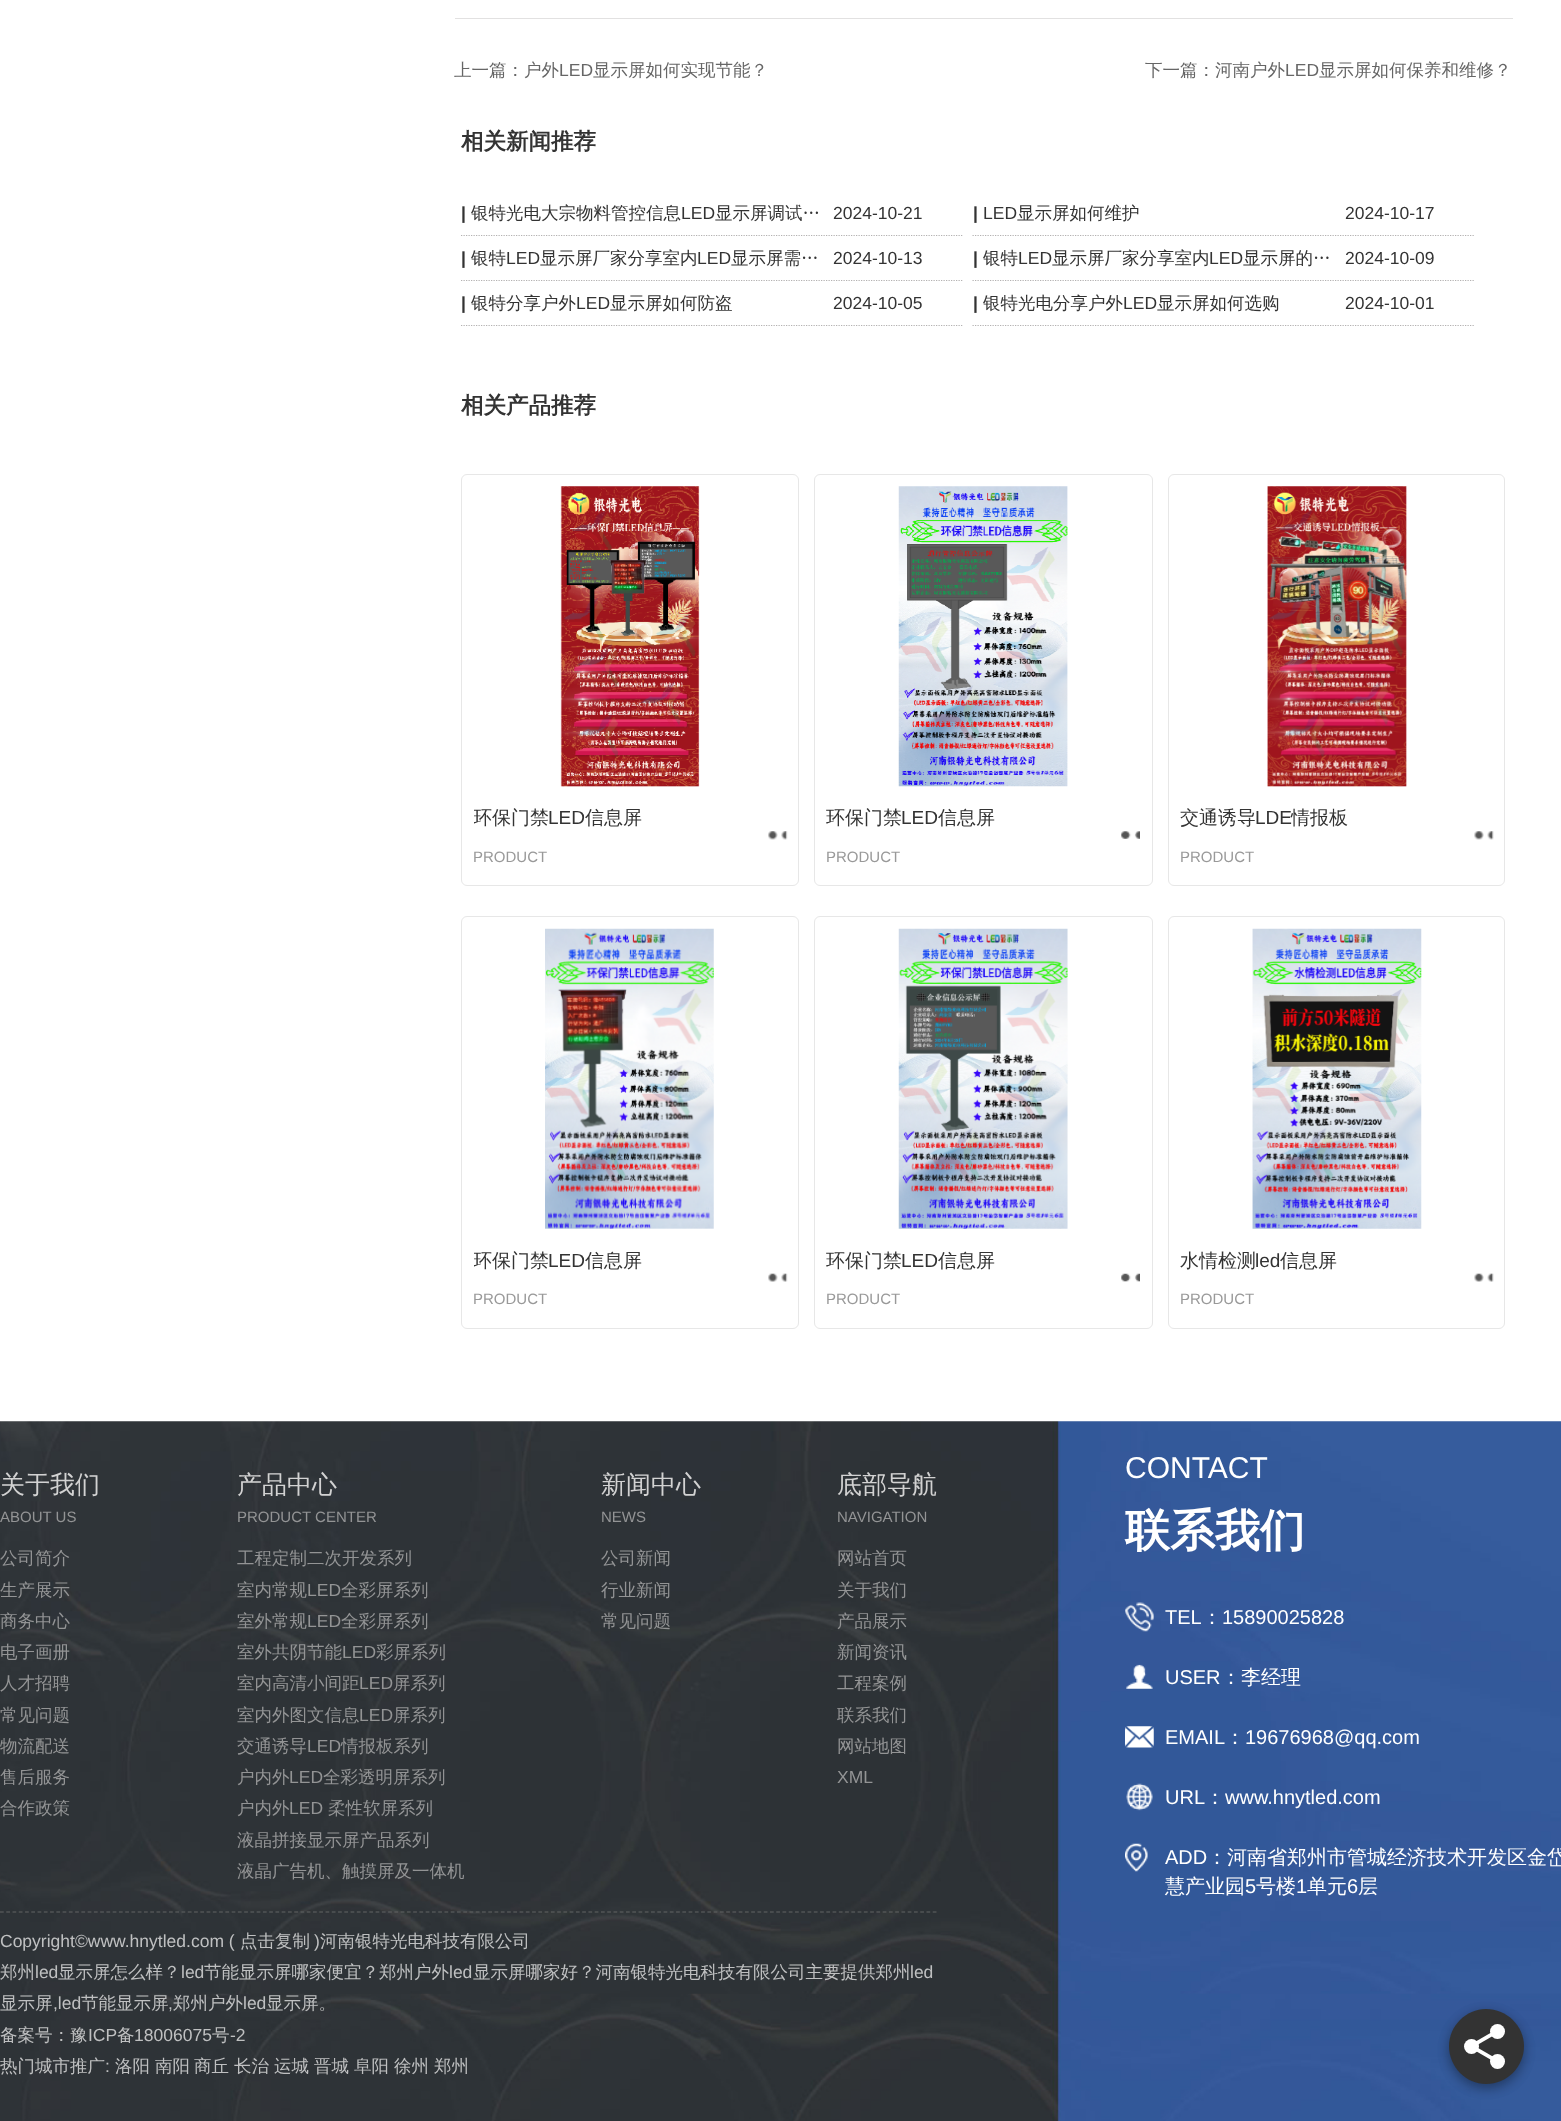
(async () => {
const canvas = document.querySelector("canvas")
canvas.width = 1561
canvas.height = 2121
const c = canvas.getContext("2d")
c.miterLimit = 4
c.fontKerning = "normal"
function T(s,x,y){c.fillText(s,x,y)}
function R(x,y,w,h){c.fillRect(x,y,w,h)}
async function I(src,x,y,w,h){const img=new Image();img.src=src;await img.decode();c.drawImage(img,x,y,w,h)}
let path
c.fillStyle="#fff"
R(0,0,1561,2121)
c.fillStyle="#e2e1e1"
R(455,18,1058,1)
c.font="500 17.5px WenQuanYi Zen Hei"
c.fillStyle="#666"
T("上一篇：户外",454,76)
c.font="17.5px Liberation Sans"
T("LED",559,76)
c.font="500 17.5px WenQuanYi Zen Hei"
T("显示屏如何实现节能？",593,76)
T("下一篇：河南户外",1145,76)
c.font="17.5px Liberation Sans"
T("LED",1285,76)
c.font="500 17.5px WenQuanYi Zen Hei"
T("显示屏如何保养和维修？",1319,76)
c.font="bold 22.5px WenQuanYi Zen Hei"
c.fillStyle="#333"
T("相关新闻推荐",461,149)
path = new Path2D("M461 235.5h501.5")
c.strokeStyle="#b3b1b1"
c.lineWidth=1.2
c.setLineDash([1.25,1.25])
c.stroke(path)
c.font="bold 17.5px Liberation Sans"
T("|",461,219)
c.font="500 17.5px WenQuanYi Zen Hei"
T("银特光电大宗物料管控信息",471,219)
c.font="17.5px Liberation Sans"
T("LED",681,219)
c.font="500 17.5px WenQuanYi Zen Hei"
T("显示屏调试…",715,219)
c.font="17.5px Liberation Sans"
T("2024-10-21",833,219)
path = new Path2D("M972.5 235.5h501.5")
c.stroke(path)
c.font="bold 17.5px Liberation Sans"
T("|",973,219)
c.font="17.5px Liberation Sans"
T("LED",983,219)
c.font="500 17.5px WenQuanYi Zen Hei"
T("显示屏如何维护",1017,219)
c.font="17.5px Liberation Sans"
T("2024-10-17",1345,219)
path = new Path2D("M461 280.5h501.5")
c.stroke(path)
c.font="bold 17.5px Liberation Sans"
T("|",461,264)
c.font="500 17.5px WenQuanYi Zen Hei"
T("银特",471,264)
c.font="17.5px Liberation Sans"
T("LED",506,264)
c.font="500 17.5px WenQuanYi Zen Hei"
T("显示屏厂家分享室内",540,264)
c.font="17.5px Liberation Sans"
T("LED",697,264)
c.font="500 17.5px WenQuanYi Zen Hei"
T("显示屏需…",731,264)
c.font="17.5px Liberation Sans"
T("2024-10-13",833,264)
path = new Path2D("M972.5 280.5h501.5")
c.stroke(path)
c.font="bold 17.5px Liberation Sans"
T("|",973,264)
c.font="500 17.5px WenQuanYi Zen Hei"
T("银特",983,264)
c.font="17.5px Liberation Sans"
T("LED",1018,264)
c.font="500 17.5px WenQuanYi Zen Hei"
T("显示屏厂家分享室内",1052,264)
c.font="17.5px Liberation Sans"
T("LED",1209,264)
c.font="500 17.5px WenQuanYi Zen Hei"
T("显示屏的…",1243,264)
c.font="17.5px Liberation Sans"
T("2024-10-09",1345,264)
path = new Path2D("M461 325.5h501.5")
c.stroke(path)
c.font="bold 17.5px Liberation Sans"
T("|",461,309)
c.font="500 17.5px WenQuanYi Zen Hei"
T("银特分享户外",471,309)
c.font="17.5px Liberation Sans"
T("LED",576,309)
c.font="500 17.5px WenQuanYi Zen Hei"
T("显示屏如何防盗",610,309)
c.font="17.5px Liberation Sans"
T("2024-10-05",833,309)
path = new Path2D("M972.5 325.5h501.5")
c.stroke(path)
c.font="bold 17.5px Liberation Sans"
T("|",973,309)
c.font="500 17.5px WenQuanYi Zen Hei"
T("银特光电分享户外",983,309)
c.font="17.5px Liberation Sans"
T("LED",1123,309)
c.font="500 17.5px WenQuanYi Zen Hei"
T("显示屏如何选购",1157,309)
c.font="17.5px Liberation Sans"
T("2024-10-01",1345,309)
c.font="bold 22.5px WenQuanYi Zen Hei"
T("相关产品推荐",461,413)
c.beginPath()
c.roundRect(461.5,474.5,337,411,5.5)
c.strokeStyle="#e7e7e7"
c.lineWidth=1
c.setLineDash([])
c.stroke()
await I("1.png",560,486,140,301)
await I("2.png",768,831,20,9)
c.save()
c.beginPath()
c.rect(474,786,250,63)
c.clip()
c.font="500 19px WenQuanYi Zen Hei"
T("环保门禁",473,824)
c.restore()
c.font="19px Liberation Sans"
T("LED",548,824)
c.font="500 19px WenQuanYi Zen Hei"
T("信息屏",585,824)
c.font="15px Liberation Sans"
c.fillStyle="#999"
T("PRODUCT",473,862)
c.beginPath()
c.roundRect(814.5,474.5,338,411,5.5)
c.stroke()
await I("3.png",898,486,170,301)
await I("4.png",1121,831,19,8)
c.font="500 19px WenQuanYi Zen Hei"
c.fillStyle="#333"
T("环保门禁",826,824)
c.font="19px Liberation Sans"
T("LED",901,824)
c.font="500 19px WenQuanYi Zen Hei"
T("信息屏",938,824)
c.font="15px Liberation Sans"
c.fillStyle="#999"
T("PRODUCT",826,862)
c.beginPath()
c.roundRect(1168.5,474.5,336,411,5.5)
c.stroke()
await I("5.png",1267,486,140,301)
await I("6.png",1474,831,20,9)
c.font="500 19px WenQuanYi Zen Hei"
c.fillStyle="#333"
T("交通诱导",1180,824)
c.font="19px Liberation Sans"
T("LDE",1255,824)
c.font="500 19px WenQuanYi Zen Hei"
T("情报板",1291,824)
c.font="15px Liberation Sans"
c.fillStyle="#999"
T("PRODUCT",1180,862)
c.beginPath()
c.roundRect(461.5,916.5,337,412,5.5)
c.stroke()
await I("7.png",545,928,169,301)
await I("8.png",768,1273,20,9)
c.save()
c.beginPath()
c.rect(474,1229,250,62)
c.clip()
c.font="500 19px WenQuanYi Zen Hei"
c.fillStyle="#333"
T("环保门禁",473,1267)
c.restore()
c.font="19px Liberation Sans"
c.fillStyle="#333"
T("LED",548,1267)
c.font="500 19px WenQuanYi Zen Hei"
T("信息屏",585,1267)
c.font="15px Liberation Sans"
c.fillStyle="#999"
T("PRODUCT",473,1304)
c.beginPath()
c.roundRect(814.5,916.5,338,412,5.5)
c.stroke()
await I("9.png",898,928,170,301)
await I("10.png",1121,1273,19,9)
c.font="500 19px WenQuanYi Zen Hei"
c.fillStyle="#333"
T("环保门禁",826,1267)
c.font="19px Liberation Sans"
T("LED",901,1267)
c.font="500 19px WenQuanYi Zen Hei"
T("信息屏",938,1267)
c.font="15px Liberation Sans"
c.fillStyle="#999"
T("PRODUCT",826,1304)
c.beginPath()
c.roundRect(1168.5,916.5,336,412,5.5)
c.stroke()
await I("11.png",1252,928,170,301)
await I("12.png",1474,1273,20,9)
c.font="500 19px WenQuanYi Zen Hei"
c.fillStyle="#333"
T("水情检测",1180,1267)
c.font="19px Liberation Sans"
T("led",1255,1267)
c.font="500 19px WenQuanYi Zen Hei"
T("信息屏",1280,1267)
c.font="15px Liberation Sans"
c.fillStyle="#999"
T("PRODUCT",1180,1304)
await I("13.png",0,1421,1561,700)
c.font="500 25px WenQuanYi Zen Hei"
c.fillStyle="#d2d2d2"
T("关于我们",0,1493)
c.font="15px Liberation Sans"
c.fillStyle="#939495"
T("ABOUT US",0,1522)
c.font="500 17.5px WenQuanYi Zen Hei"
T("公司简介",0,1564)
T("生产展示",0,1596)
T("商务中心",0,1627)
T("电子画册",0,1658)
T("人才招聘",0,1689)
T("常见问题",0,1721)
T("物流配送",0,1752)
T("售后服务",0,1783)
T("合作政策",0,1814)
c.font="500 25px WenQuanYi Zen Hei"
c.fillStyle="#d2d2d2"
T("产品中心",237,1493)
c.font="15px Liberation Sans"
c.fillStyle="#939495"
T("PRODUCT CENTER",237,1522)
c.font="500 17.5px WenQuanYi Zen Hei"
T("工程定制二次开发系列",237,1564)
T("室内常规",237,1596)
c.font="17.5px Liberation Sans"
T("LED",307,1596)
c.font="500 17.5px WenQuanYi Zen Hei"
T("全彩屏系列",341,1596)
T("室外常规",237,1627)
c.font="17.5px Liberation Sans"
T("LED",307,1627)
c.font="500 17.5px WenQuanYi Zen Hei"
T("全彩屏系列",341,1627)
T("室外共阴节能",237,1658)
c.font="17.5px Liberation Sans"
T("LED",342,1658)
c.font="500 17.5px WenQuanYi Zen Hei"
T("彩屏系列",376,1658)
T("室内高清小间距",237,1689)
c.font="17.5px Liberation Sans"
T("LED",359,1689)
c.font="500 17.5px WenQuanYi Zen Hei"
T("屏系列",393,1689)
T("室内外图文信息",237,1721)
c.font="17.5px Liberation Sans"
T("LED",359,1721)
c.font="500 17.5px WenQuanYi Zen Hei"
T("屏系列",393,1721)
T("交通诱导",237,1752)
c.font="17.5px Liberation Sans"
T("LED",307,1752)
c.font="500 17.5px WenQuanYi Zen Hei"
T("情报板系列",341,1752)
T("户内外",237,1783)
c.font="17.5px Liberation Sans"
T("LED",289,1783)
c.font="500 17.5px WenQuanYi Zen Hei"
T("全彩透明屏系列",323,1783)
T("户内外",237,1814)
c.font="17.5px Liberation Sans"
T("LED",289,1814)
c.font="500 17.5px WenQuanYi Zen Hei"
T("柔性软屏系列",328,1814)
T("液晶拼接显示屏产品系列",237,1846)
T("液晶广告机、触摸屏及一体机",237,1877)
c.font="500 25px WenQuanYi Zen Hei"
c.fillStyle="#d2d2d2"
T("新闻中心",601,1493)
c.font="15px Liberation Sans"
c.fillStyle="#939495"
T("NEWS",601,1522)
c.font="500 17.5px WenQuanYi Zen Hei"
T("公司新闻",601,1564)
T("行业新闻",601,1596)
T("常见问题",601,1627)
c.font="500 25px WenQuanYi Zen Hei"
c.fillStyle="#d2d2d2"
T("底部导航",837,1493)
c.font="15px Liberation Sans"
c.fillStyle="#939495"
T("NAVIGATION",837,1522)
c.font="500 17.5px WenQuanYi Zen Hei"
T("网站首页",837,1564)
T("关于我们",837,1596)
T("产品展示",837,1627)
T("新闻资讯",837,1658)
T("工程案例",837,1689)
T("联系我们",837,1721)
T("网站地图",837,1752)
c.font="17.5px Liberation Sans"
T("XML",837,1783)
path = new Path2D("M0 1912h937.5")
c.strokeStyle="#636465"
c.lineWidth=1.2
c.setLineDash([3.75,2.51])
c.stroke(path)
c.fillStyle="#bfc0c1"
T("Copyright©www.hnytled.com (",0,1947)
c.font="500 17.5px WenQuanYi Zen Hei"
T("点击复制",240,1947)
c.font="17.5px Liberation Sans"
T(")",314,1947)
c.font="500 17.5px WenQuanYi Zen Hei"
T("河南银特光电科技有限公司",320,1947)
T("郑州",0,1978)
c.font="17.5px Liberation Sans"
T("led",35,1978)
c.font="500 17.5px WenQuanYi Zen Hei"
T("显示屏怎么样？",58,1978)
c.font="17.5px Liberation Sans"
T("led",181,1978)
c.font="500 17.5px WenQuanYi Zen Hei"
T("节能显示屏哪家便宜？郑州户外",204,1978)
c.font="17.5px Liberation Sans"
T("led",449,1978)
c.font="500 17.5px WenQuanYi Zen Hei"
T("显示屏哪家好？河南银特光电科技有限公司主要提供郑州",473,1978)
c.font="17.5px Liberation Sans"
T("led",910,1978)
c.font="500 17.5px WenQuanYi Zen Hei"
T("显示屏",0,2009)
c.font="17.5px Liberation Sans"
T(",led",53,2009)
c.font="500 17.5px WenQuanYi Zen Hei"
T("节能显示屏",81,2009)
c.font="17.5px Liberation Sans"
T(",",168,2009)
c.font="500 17.5px WenQuanYi Zen Hei"
T("郑州户外",173,2009)
c.font="17.5px Liberation Sans"
T("led",243,2009)
c.font="500 17.5px WenQuanYi Zen Hei"
T("显示屏。",266,2009)
T("备案号：豫",0,2041)
c.font="17.5px Liberation Sans"
T("ICP",88,2041)
c.font="500 17.5px WenQuanYi Zen Hei"
T("备",117,2041)
c.font="17.5px Liberation Sans"
T("18006075",134,2041)
c.font="500 17.5px WenQuanYi Zen Hei"
T("号",212,2041)
c.font="17.5px Liberation Sans"
T("-2",230,2041)
c.font="500 17.5px WenQuanYi Zen Hei"
T("热门城市推广",0,2072)
c.font="17.5px Liberation Sans"
T(":",105,2072)
c.font="500 17.5px WenQuanYi Zen Hei"
T("洛阳",115,2072)
T("南阳",155,2072)
T("商丘",194,2072)
T("长治",234,2072)
T("运城",274,2072)
T("晋城",314,2072)
T("阜阳",354,2072)
T("徐州",394,2072)
T("郑州",434,2072)
c.font="30px Liberation Sans"
c.fillStyle="#fff"
T("CONTACT",1125,1478)
c.font="bold 45px WenQuanYi Zen Hei"
T("联系我们",1125,1546)
await I("14.png",1125,1602,29,30)
c.font="20px Liberation Sans"
T("TEL",1165,1624)
c.font="500 20px WenQuanYi Zen Hei"
T("：",1202,1624)
c.font="20px Liberation Sans"
T("15890025828",1222,1624)
await I("15.png",1126,1664,27,25)
T("USER",1165,1684)
c.font="500 20px WenQuanYi Zen Hei"
T("：李经理",1221,1684)
await I("16.png",1125,1726,29,22)
c.font="20px Liberation Sans"
T("EMAIL",1165,1744)
c.font="500 20px WenQuanYi Zen Hei"
T("：",1225,1744)
c.font="20px Liberation Sans"
T("19676968@qq.com",1245,1744)
await I("17.png",1126,1783,27,28)
T("URL",1165,1804)
c.font="500 20px WenQuanYi Zen Hei"
T("：",1205,1804)
c.font="20px Liberation Sans"
T("www.hnytled.com",1225,1804)
await I("18.png",1125,1843,23,29)
T("ADD",1165,1864)
c.font="500 20px WenQuanYi Zen Hei"
T("：河南省郑州市管城经济技术开发区金岱",1207,1864)
T("慧产业园",1165,1893)
c.font="20px Liberation Sans"
T("5",1245,1893)
c.font="500 20px WenQuanYi Zen Hei"
T("号楼",1256,1893)
c.font="20px Liberation Sans"
T("1",1296,1893)
c.font="500 20px WenQuanYi Zen Hei"
T("单元",1307,1893)
c.font="20px Liberation Sans"
T("6",1347,1893)
c.font="500 20px WenQuanYi Zen Hei"
T("层",1358,1893)
c.fillStyle="#00000029"
c.filter="blur(6px)"
c.beginPath()
c.roundRect(1449,2013,75,75,37.5)
c.fill()
c.filter="none"
c.fillStyle="#0000003b"
c.filter="blur(6px)"
c.beginPath()
c.roundRect(1449,2013,75,75,37.5)
c.fill()
c.filter="none"
c.fillStyle="#333"
path = new Path2D("M1486 2084c-20 0-37-17-37-38c0-20 17-37 37-37c21 0 38 17 38 37c0 21-17 38-38 38z")
c.fill(path)
c.fillStyle="#fff"
c.beginPath()
c.arc(1471.5,2046.5,7.5,0,7)
c.fill()
c.beginPath()
c.arc(1497.5,2031.5,7.5,0,7)
c.fill()
c.beginPath()
c.arc(1497.5,2061.5,7.5,0,7)
c.fill()
path = new Path2D("M1472 2044.5l26 15l-1.5 3.5l-26-15z")
c.fill(path)
path = new Path2D("M1470.5 2044.5l26-15l1.5 3.5l-26 15z")
c.fill(path)
})()
